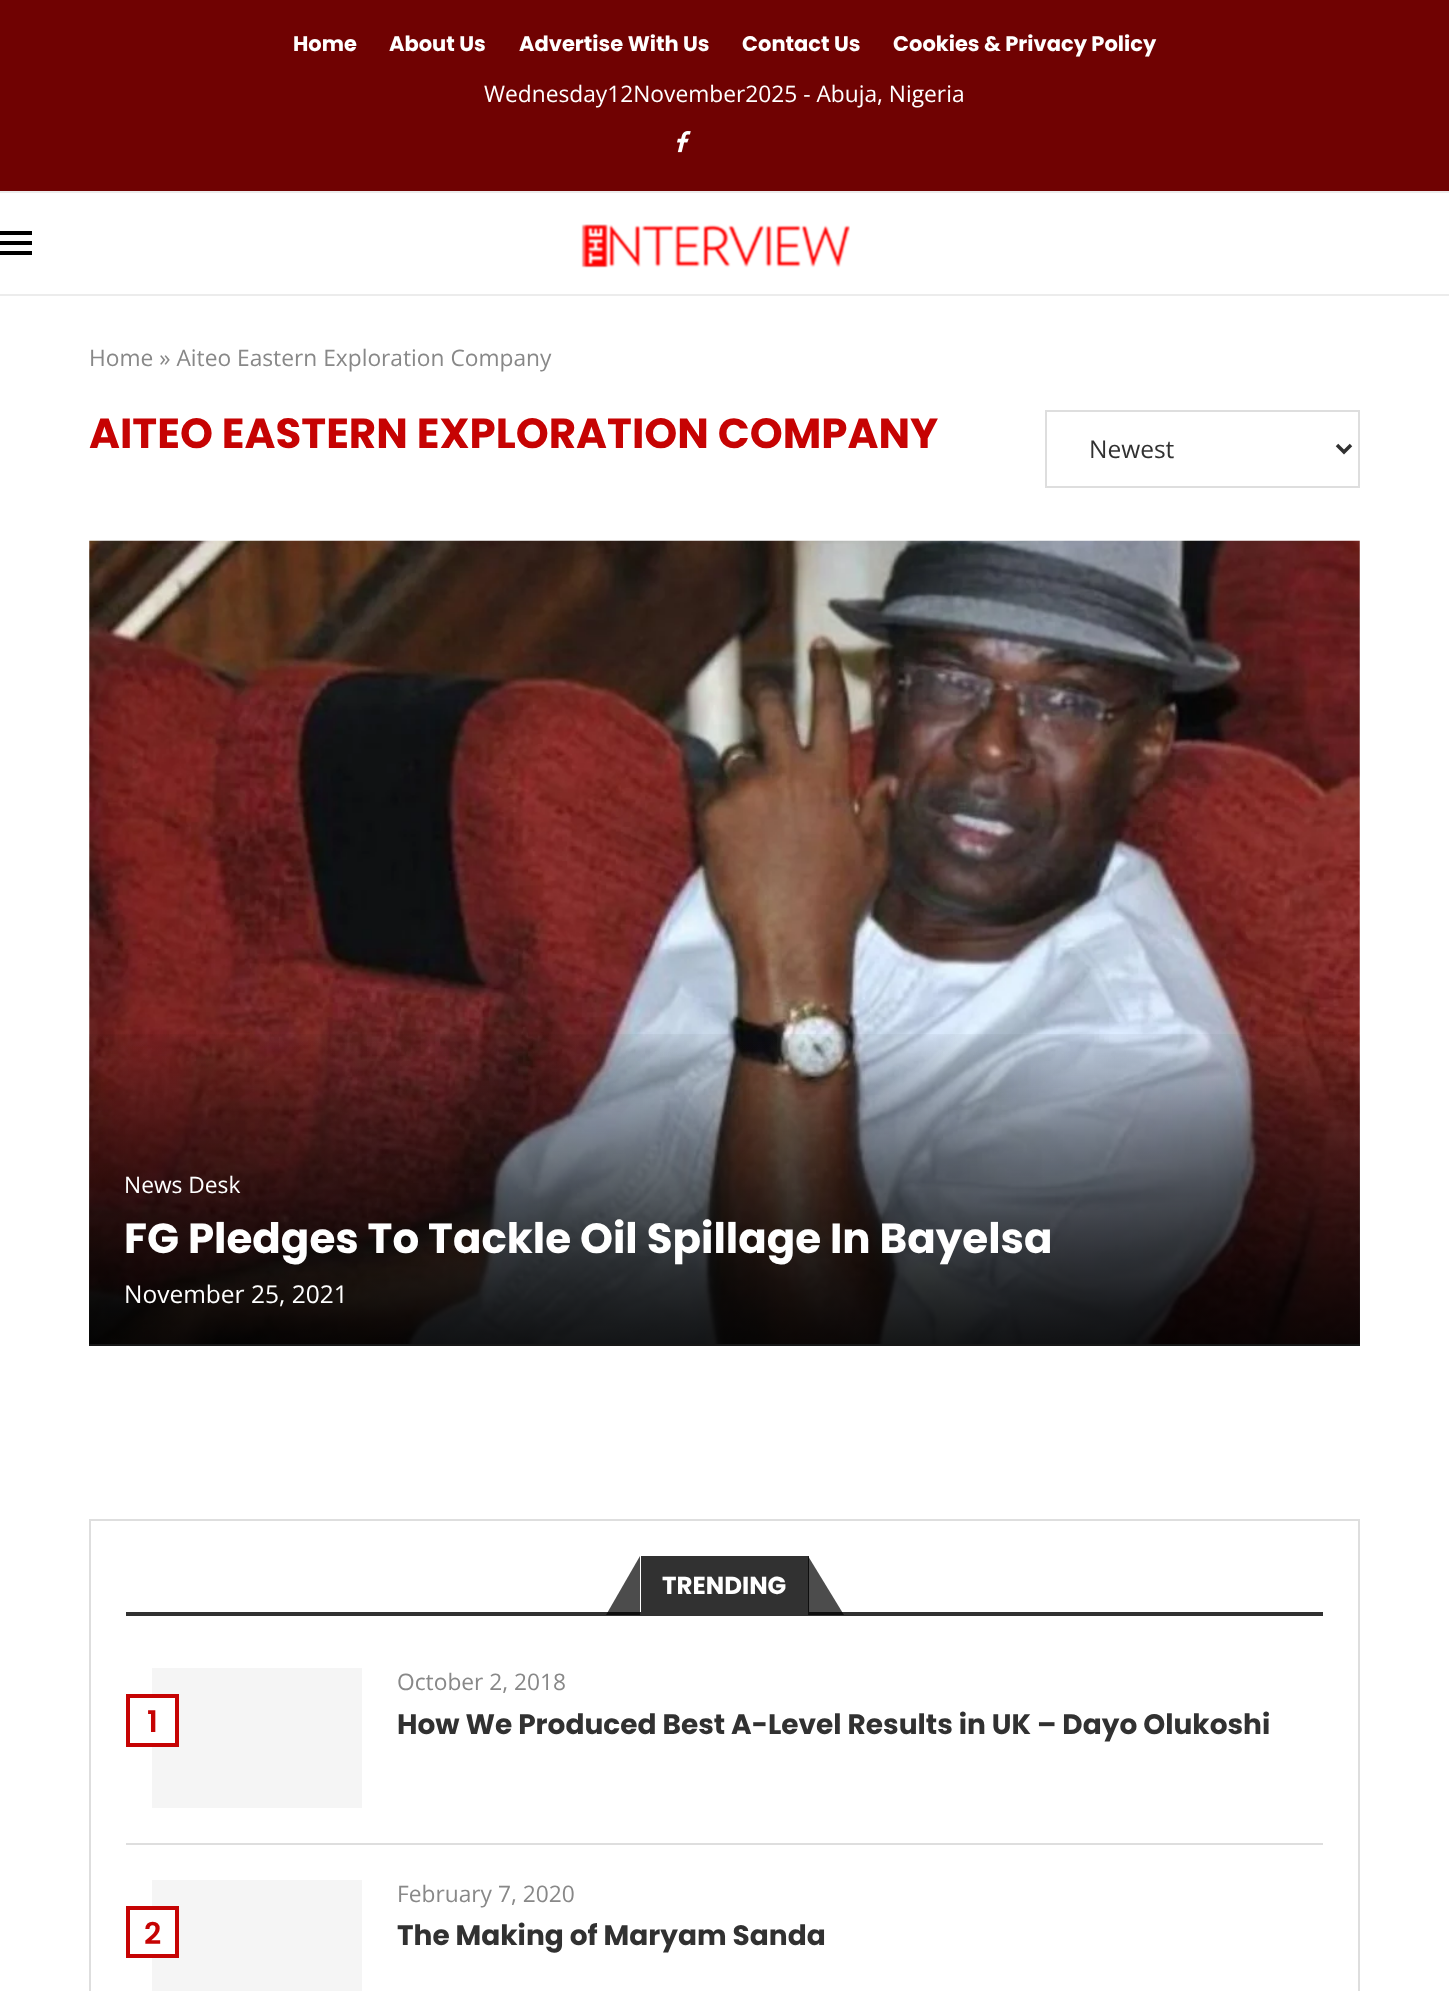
(async () => {
const canvas = document.querySelector("canvas")
canvas.width = 1449
canvas.height = 1991
const c = canvas.getContext("2d")
c.miterLimit = 4
c.fontKerning = "normal"
function T(s,x,y){c.fillText(s,x,y)}
function R(x,y,w,h){c.fillRect(x,y,w,h)}
async function I(src,x,y,w,h){const img=new Image();img.src=src;await img.decode();c.drawImage(img,x,y,w,h)}
let gradient, path
c.fillStyle="#fff"
R(0,0,1449,1991)
c.fillStyle="#700202"
R(0,0,1449,191)
c.font="bold 21px Poppins"
c.fillStyle="#fff"
T("Home",293,51)
T("About Us",389,51)
T("Advertise With Us",519,51)
T("Contact Us",742,51)
T("Cookies & Privacy Policy",893,51)
c.font="22.75px Open Sans"
T("Wednesday12November2025 - Abuja, Nigeria",484,102)
await I("1.png",677,131,14,22)
c.fillStyle="#ececec"
R(0,191,1449,2)
R(0,294,1449,2)
c.fillStyle="#000"
R(0,231,32,4)
R(0,241,32,4)
R(0,251,32,4)
await I("2.png",581,224,269,44)
c.fillStyle="#888"
T("Home » Aiteo Eastern Exploration Company",89,366)
c.font="bold 42px Poppins"
c.fillStyle="#c60303"
T("AITEO EASTERN EXPLORATION COMPANY",89,448)
c.strokeStyle="#dedede"
c.lineWidth=2
c.strokeRect(1046,411,313,76)
path = new Path2D("M1337 445l7 7l7-7")
c.strokeStyle="#313131"
c.lineWidth=3.5
c.stroke(path)
c.font="24.5px Open Sans"
c.fillStyle="#313131"
T("Newest",1089,458)
await I("3.png",89,540,1271,804)
gradient = c.createLinearGradient(725,541,725,1346)
gradient.addColorStop(.6,"#00000000")
gradient.addColorStop(1,"#000000b3")
c.fillStyle = gradient
R(89,1034,1271,312)
R(89,1034,1271,312)
c.font="22.75px Open Sans"
c.fillStyle="#fff"
T("News Desk",124,1193)
c.font="bold 42px Poppins"
T("FG Pledges To Tackle Oil Spillage In Bayelsa",124,1253)
c.font="24.5px Open Sans"
T("November 25, 2021",124,1303)
c.strokeStyle="#dedede"
c.lineWidth=2
c.strokeRect(90,1520,1269,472)
c.fillStyle="#313131"
R(126,1612,1197,4)
R(641,1556,168,56)
c.fillStyle="#000000b3"
path = new Path2D("M640 1615h-34l34-59z")
c.fill(path)
c.font="bold 24.5px Poppins"
c.fillStyle="#fff"
T("TRENDING",662,1594)
c.fillStyle="#000000b3"
path = new Path2D("M844 1615h-36v-59z")
c.fill(path)
c.fillStyle="#dedede"
R(126,1843,1197,2)
c.fillStyle="#f5f5f5"
R(152,1668,210,140)
c.fillStyle="#fff"
R(152,1698,23,45)
c.strokeStyle="#c60303"
c.lineWidth=4
c.strokeRect(128,1696,49,49)
c.font="600 30px Poppins"
c.fillStyle="#c60303"
T("1",147,1732)
c.font="22.75px Open Sans"
c.fillStyle="#888"
T("October 2, 2018",397,1690)
c.font="bold 28px Poppins"
c.fillStyle="#313131"
T("How We Produced Best A-Level Results in UK – Dayo Olukoshi",397,1734)
c.fillStyle="#f5f5f5"
R(152,1880,210,111)
c.fillStyle="#fff"
R(152,1910,23,44)
c.strokeRect(128,1908,49,48)
c.font="600 30px Poppins"
c.fillStyle="#c60303"
T("2",144,1944)
c.font="22.75px Open Sans"
c.fillStyle="#888"
T("February 7, 2020",397,1902)
c.font="bold 28px Poppins"
c.fillStyle="#313131"
T("The Making of Maryam Sanda",397,1945)
})()
